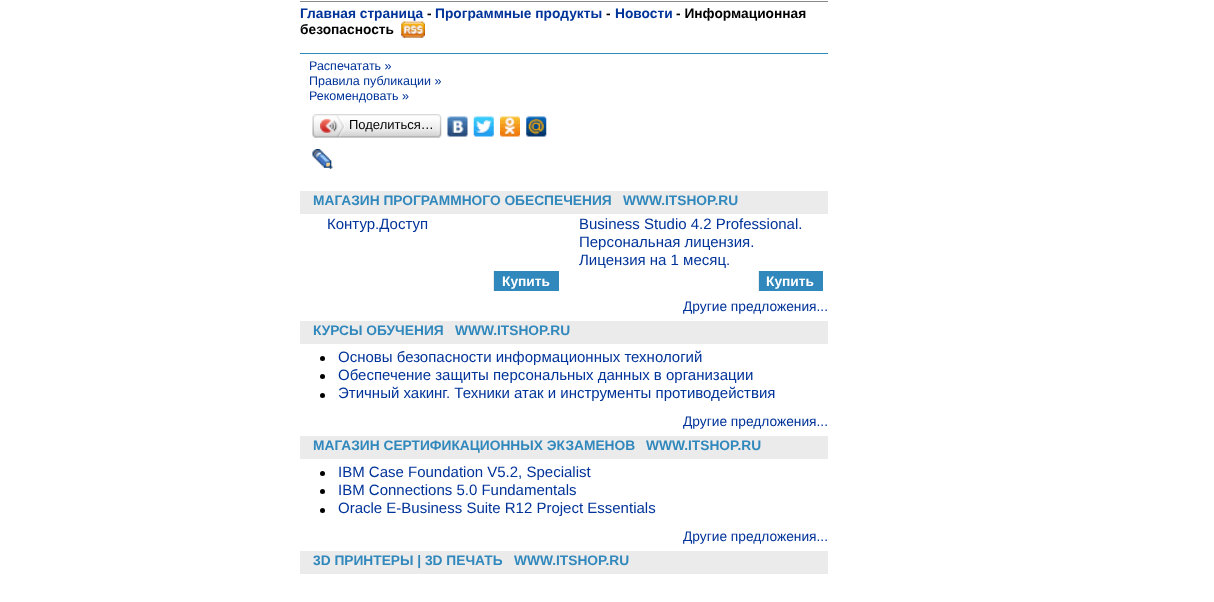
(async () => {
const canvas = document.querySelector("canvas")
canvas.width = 1214
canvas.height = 602
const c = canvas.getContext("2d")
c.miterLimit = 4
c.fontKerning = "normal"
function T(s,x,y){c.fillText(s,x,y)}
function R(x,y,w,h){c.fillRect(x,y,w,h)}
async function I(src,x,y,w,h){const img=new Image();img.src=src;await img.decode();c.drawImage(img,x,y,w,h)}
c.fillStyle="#fff"
R(0,0,1214,602)
c.fillStyle="#898989"
R(300,1,528,1)
c.font="bold 13.75px Liberation Sans"
c.fillStyle="#039"
T("Главная страница",300,18)
c.fillStyle="#000"
T("-",427,18)
c.fillStyle="#039"
T("Программные продукты",435,18)
c.fillStyle="#000"
T("-",606,18)
c.fillStyle="#039"
T("Новости",615,18)
c.fillStyle="#000"
T("- Информационная",676,18)
T("безопасность",300,34)
await I("1.png",401,21,24,17)
c.fillStyle="#3188bc"
R(300,53,528,1)
c.font="12.5px Liberation Sans"
c.fillStyle="#039"
T("Распечатать »",309,70)
T("Правила публикации »",309,85)
T("Рекомендовать »",309,100)
await I("2.png",316,114,122,24)
await I("3.png",312,114,5,24)
await I("4.png",320,115,25,22)
c.font="13px Liberation Sans"
c.fillStyle="#000"
T("Поделиться…",349,129)
await I("5.png",437,114,5,24)
await I("6.png",447,116,21,21)
await I("7.png",473,116,21,21)
await I("8.png",500,116,20,21)
await I("9.png",526,116,21,21)
await I("10.png",312,149,21,20)
c.fillStyle="#ebebeb"
R(300,191,528,23)
c.font="bold 13.75px Liberation Sans"
c.fillStyle="#3188bc"
T("МАГАЗИН ПРОГРАММНОГО ОБЕСПЕЧЕНИЯ",313,205)
T("WWW.ITSHOP.RU",623,205)
c.font="15px Liberation Sans"
c.fillStyle="#039"
T("Контур.Доступ",327,229)
c.fillStyle="#3188bc"
R(494,271,65,20)
c.fillStyle="#ebebeb"
R(493,271,1,20)
c.font="bold 13.75px Liberation Sans"
c.fillStyle="#fff"
T("Купить",502,286)
c.font="15px Liberation Sans"
c.fillStyle="#039"
T("Business Studio 4.2 Professional.",579,229)
T("Персональная лицензия.",579,247)
T("Лицензия на 1 месяц.",579,265)
c.fillStyle="#3188bc"
R(759,271,64,20)
c.fillStyle="#ebebeb"
R(758,271,1,20)
c.font="bold 13.75px Liberation Sans"
c.fillStyle="#fff"
T("Купить",766,286)
c.font="13.75px Liberation Sans"
c.fillStyle="#039"
T("Другие предложения...",683,311)
c.fillStyle="#ebebeb"
R(300,321,528,23)
c.font="bold 13.75px Liberation Sans"
c.fillStyle="#3188bc"
T("КУРСЫ ОБУЧЕНИЯ",313,335)
T("WWW.ITSHOP.RU",455,335)
c.fillStyle="#000"
c.beginPath()
c.arc(322.5,358.5,2.5,0,7)
c.fill()
c.font="15px Liberation Sans"
c.fillStyle="#039"
T("Основы безопасности информационных технологий",338,362)
c.fillStyle="#000"
c.beginPath()
c.arc(322.5,376.5,2.5,0,7)
c.fill()
c.fillStyle="#039"
T("Обеспечение защиты персональных данных в организации",338,380)
c.fillStyle="#000"
c.beginPath()
c.arc(322.5,395.5,2.5,0,7)
c.fill()
c.fillStyle="#039"
T("Этичный хакинг. Техники атак и инструменты противодействия",338,398)
c.font="13.75px Liberation Sans"
T("Другие предложения...",683,426)
c.fillStyle="#ebebeb"
R(300,436,528,23)
c.font="bold 13.75px Liberation Sans"
c.fillStyle="#3188bc"
T("МАГАЗИН СЕРТИФИКАЦИОННЫХ ЭКЗАМЕНОВ",313,450)
T("WWW.ITSHOP.RU",646,450)
c.fillStyle="#000"
c.beginPath()
c.arc(322.5,473.5,2.5,0,7)
c.fill()
c.font="15px Liberation Sans"
c.fillStyle="#039"
T("IBM Case Foundation V5.2, Specialist",338,477)
c.fillStyle="#000"
c.beginPath()
c.arc(322.5,491.5,2.5,0,7)
c.fill()
c.fillStyle="#039"
T("IBM Connections 5.0 Fundamentals",338,495)
c.fillStyle="#000"
c.beginPath()
c.arc(322.5,510.5,2.5,0,7)
c.fill()
c.fillStyle="#039"
T("Oracle E-Business Suite R12 Project Essentials",338,513)
c.font="13.75px Liberation Sans"
T("Другие предложения...",683,541)
c.fillStyle="#ebebeb"
R(300,551,528,23)
c.font="bold 13.75px Liberation Sans"
c.fillStyle="#3188bc"
T("3D ПРИНТЕРЫ | 3D ПЕЧАТЬ",313,565)
T("WWW.ITSHOP.RU",514,565)
})()
